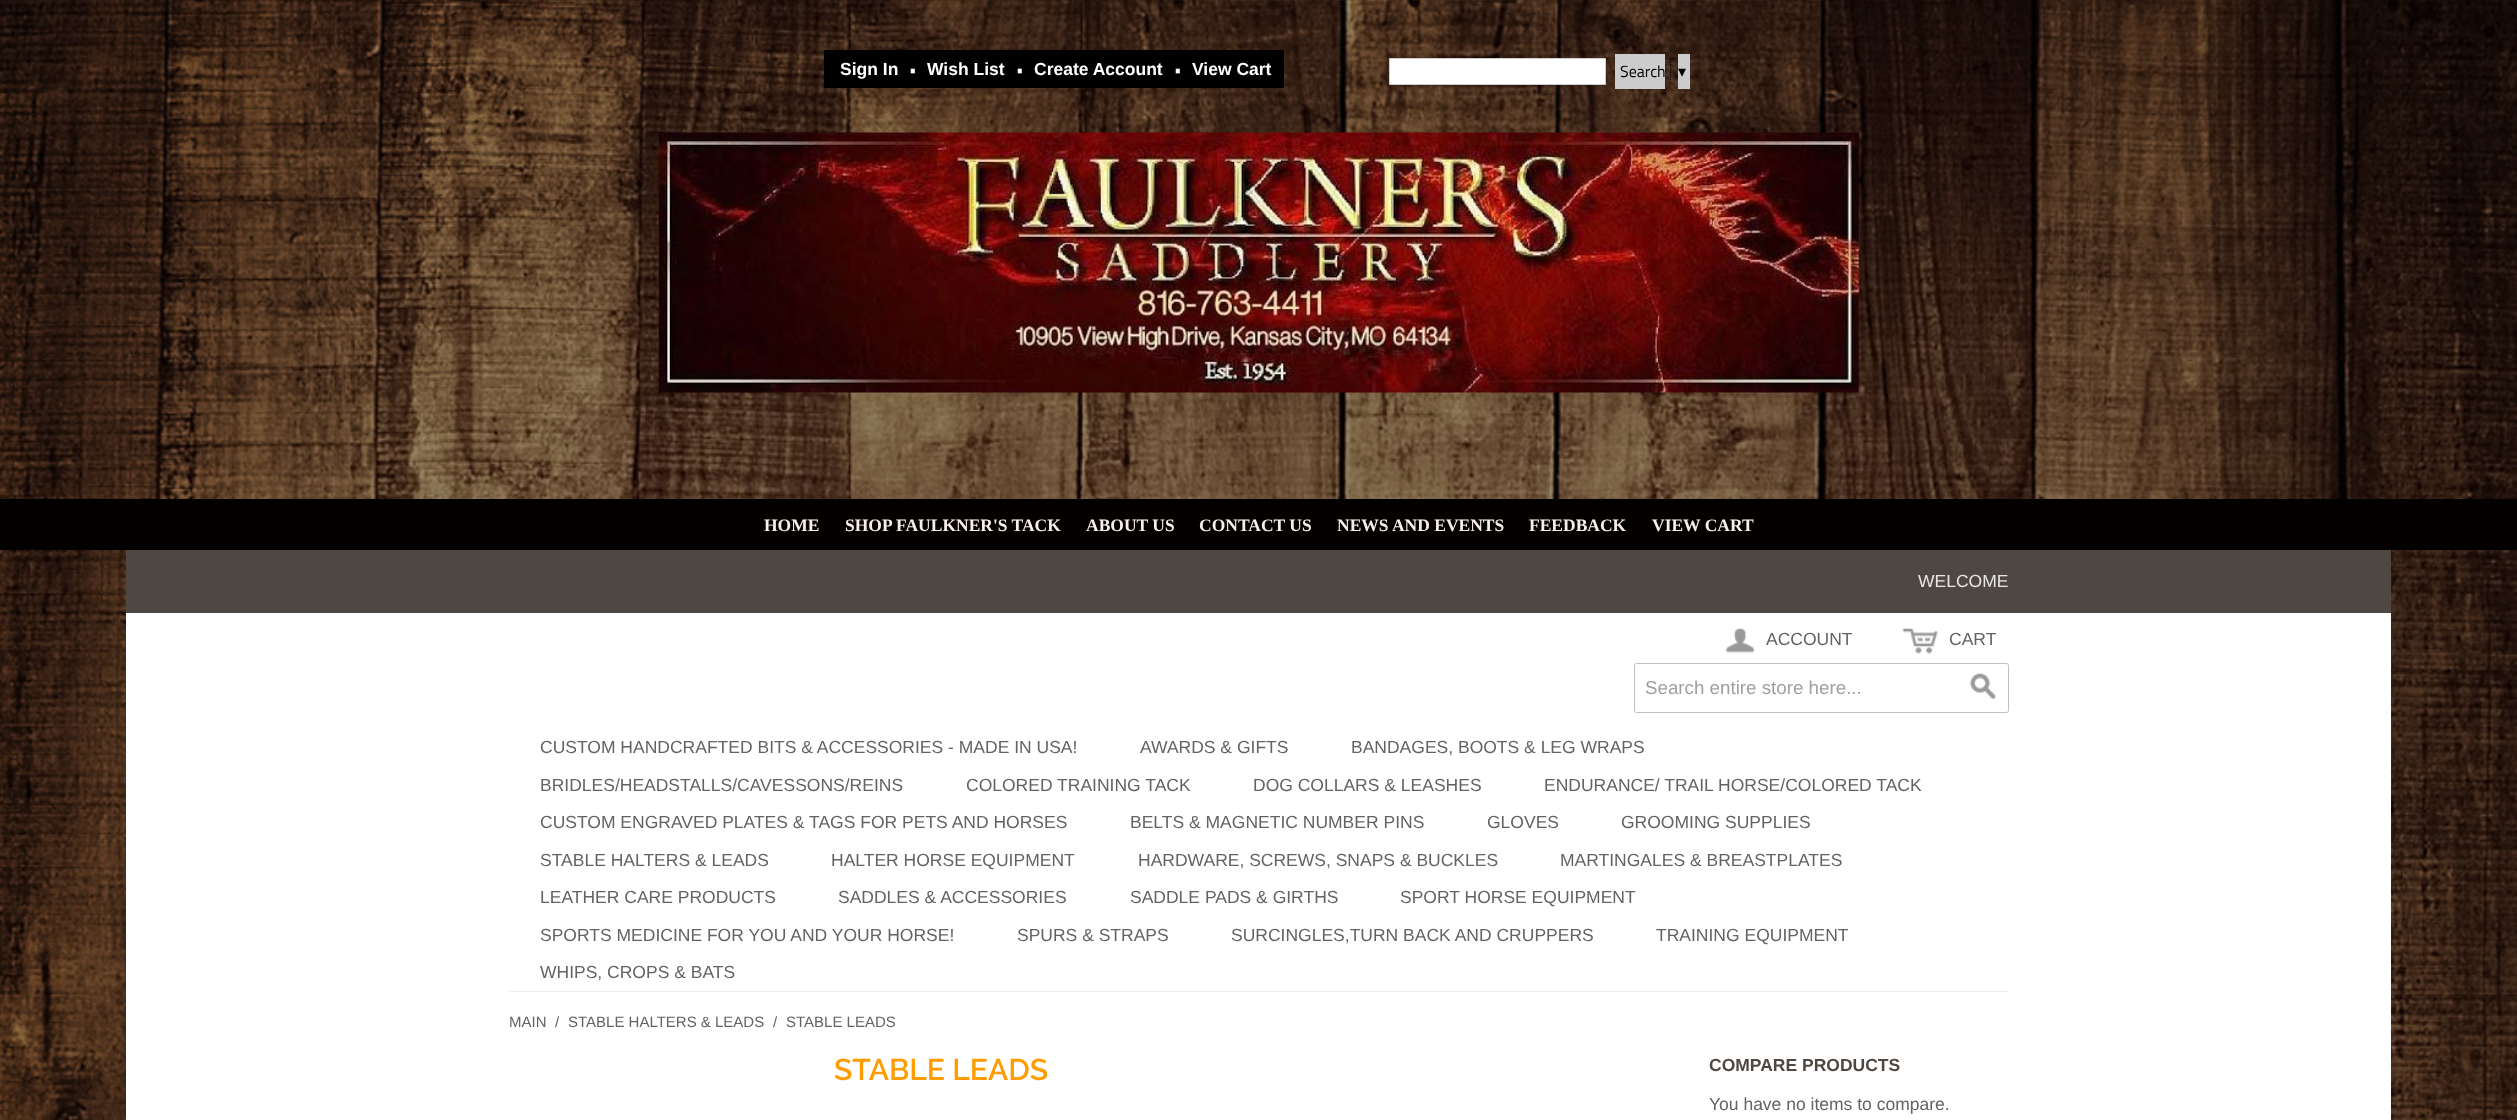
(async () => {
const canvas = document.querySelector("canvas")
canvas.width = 2517
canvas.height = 1120
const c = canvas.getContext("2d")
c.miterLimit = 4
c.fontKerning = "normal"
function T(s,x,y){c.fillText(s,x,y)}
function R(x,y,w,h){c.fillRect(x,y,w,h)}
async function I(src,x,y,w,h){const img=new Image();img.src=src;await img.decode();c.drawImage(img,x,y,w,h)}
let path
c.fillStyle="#fff"
R(0,0,2517,1120)
await I("1.png",0,0,2517,1120)
c.fillStyle="#000"
R(824,50,460,38)
c.font="bold 17.5px Liberation Sans"
c.fillStyle="#fff"
T("Sign In",840,75)
c.font="16px Titillium Web"
T("•",909,75)
c.font="bold 17.5px Liberation Sans"
T("Wish List",927,75)
c.font="16px Titillium Web"
T("•",1016,75)
c.font="bold 17.5px Liberation Sans"
T("Create Account",1034,75)
c.font="16px Titillium Web"
T("•",1174,75)
c.font="bold 17.5px Liberation Sans"
T("View Cart",1192,75)
c.beginPath()
c.rect(1389.5,58.5,216,26)
c.fill()
c.strokeStyle="#ccc"
c.stroke()
c.fillStyle="#ccc"
R(1615,54,50,35)
c.font="16px Titillium Web"
c.fillStyle="#000"
T("Search",1620,77)
path = new Path2D("M1670.5 59v25")
c.strokeStyle="#000"
c.lineWidth=1.2
c.setLineDash([1.25,1.25])
c.stroke(path)
c.fillStyle="#ccc"
R(1678,54,12,35)
c.font="16px DejaVu Sans"
c.fillStyle="#000"
T("▾",1678,77)
await I("2.png",658,132,1201,261)
c.fillStyle="#030000"
R(0,499,2517,51)
c.font="bold 17.5px Liberation Serif"
c.fillStyle="#f8eeee"
T("HOME",764,531)
T("SHOP FAULKNER'S TACK",845,531)
T("ABOUT US",1086,531)
T("CONTACT US",1199,531)
T("NEWS AND EVENTS",1337,531)
T("FEEDBACK",1529,531)
T("VIEW CART",1652,531)
c.fillStyle="#fff"
R(126,613,2265,507)
c.fillStyle="#4f4742"
R(126,550,2265,63)
c.font="17.5px Liberation Sans"
c.fillStyle="#e6e6e6"
T("WELCOME",1918,587)
await I("3.png",1726,628,29,25)
c.fillStyle="#636363"
T("ACCOUNT",1766,645)
await I("4.png",1902,628,36,26)
T("CART",1949,645)
c.beginPath()
c.roundRect(1634.5,663.5,374,49,2)
c.strokeStyle="#c0c0c0"
c.lineWidth=1
c.setLineDash([])
c.stroke()
c.font="18.75px Liberation Sans"
c.fillStyle="#a0a0a0"
T("Search entire store here...",1645,694)
await I("5.png",1970,673,27,26)
c.fillStyle="#ededed"
R(509,991,1500,1)
c.font="17.5px Liberation Sans"
c.fillStyle="#636363"
T("CUSTOM HANDCRAFTED BITS & ACCESSORIES - MADE IN USA!",540,753)
T("AWARDS & GIFTS",1140,753)
T("BANDAGES, BOOTS & LEG WRAPS",1351,753)
T("BRIDLES/HEADSTALLS/CAVESSONS/REINS",540,791)
T("COLORED TRAINING TACK",966,791)
T("DOG COLLARS & LEASHES",1253,791)
T("ENDURANCE/ TRAIL HORSE/COLORED TACK",1544,791)
T("CUSTOM ENGRAVED PLATES & TAGS FOR PETS AND HORSES",540,828)
T("BELTS & MAGNETIC NUMBER PINS",1130,828)
T("GLOVES",1487,828)
T("GROOMING SUPPLIES",1621,828)
T("STABLE HALTERS & LEADS",540,866)
T("HALTER HORSE EQUIPMENT",831,866)
T("HARDWARE, SCREWS, SNAPS & BUCKLES",1138,866)
T("MARTINGALES & BREASTPLATES",1560,866)
T("LEATHER CARE PRODUCTS",540,903)
T("SADDLES & ACCESSORIES",838,903)
T("SADDLE PADS & GIRTHS",1130,903)
T("SPORT HORSE EQUIPMENT",1400,903)
T("SPORTS MEDICINE FOR YOU AND YOUR HORSE!",540,941)
T("SPURS & STRAPS",1017,941)
T("SURCINGLES,TURN BACK AND CRUPPERS",1231,941)
T("TRAINING EQUIPMENT",1656,941)
T("WHIPS, CROPS & BATS",540,978)
c.font="15px Liberation Sans"
T("MAIN",509,1027)
T("/",555,1027)
T("STABLE HALTERS & LEADS",568,1027)
T("/",773,1027)
T("STABLE LEADS",786,1027)
c.font="600 30px Raleway"
c.fillStyle="#ff9c00"
T("STABLE LEADS",834,1080)
c.font="bold 17.5px Liberation Sans"
c.fillStyle="#4f4742"
T("COMPARE PRODUCTS",1709,1071)
c.font="17.5px Liberation Sans"
c.fillStyle="#636363"
T("You have no items to compare.",1709,1110)
})()
